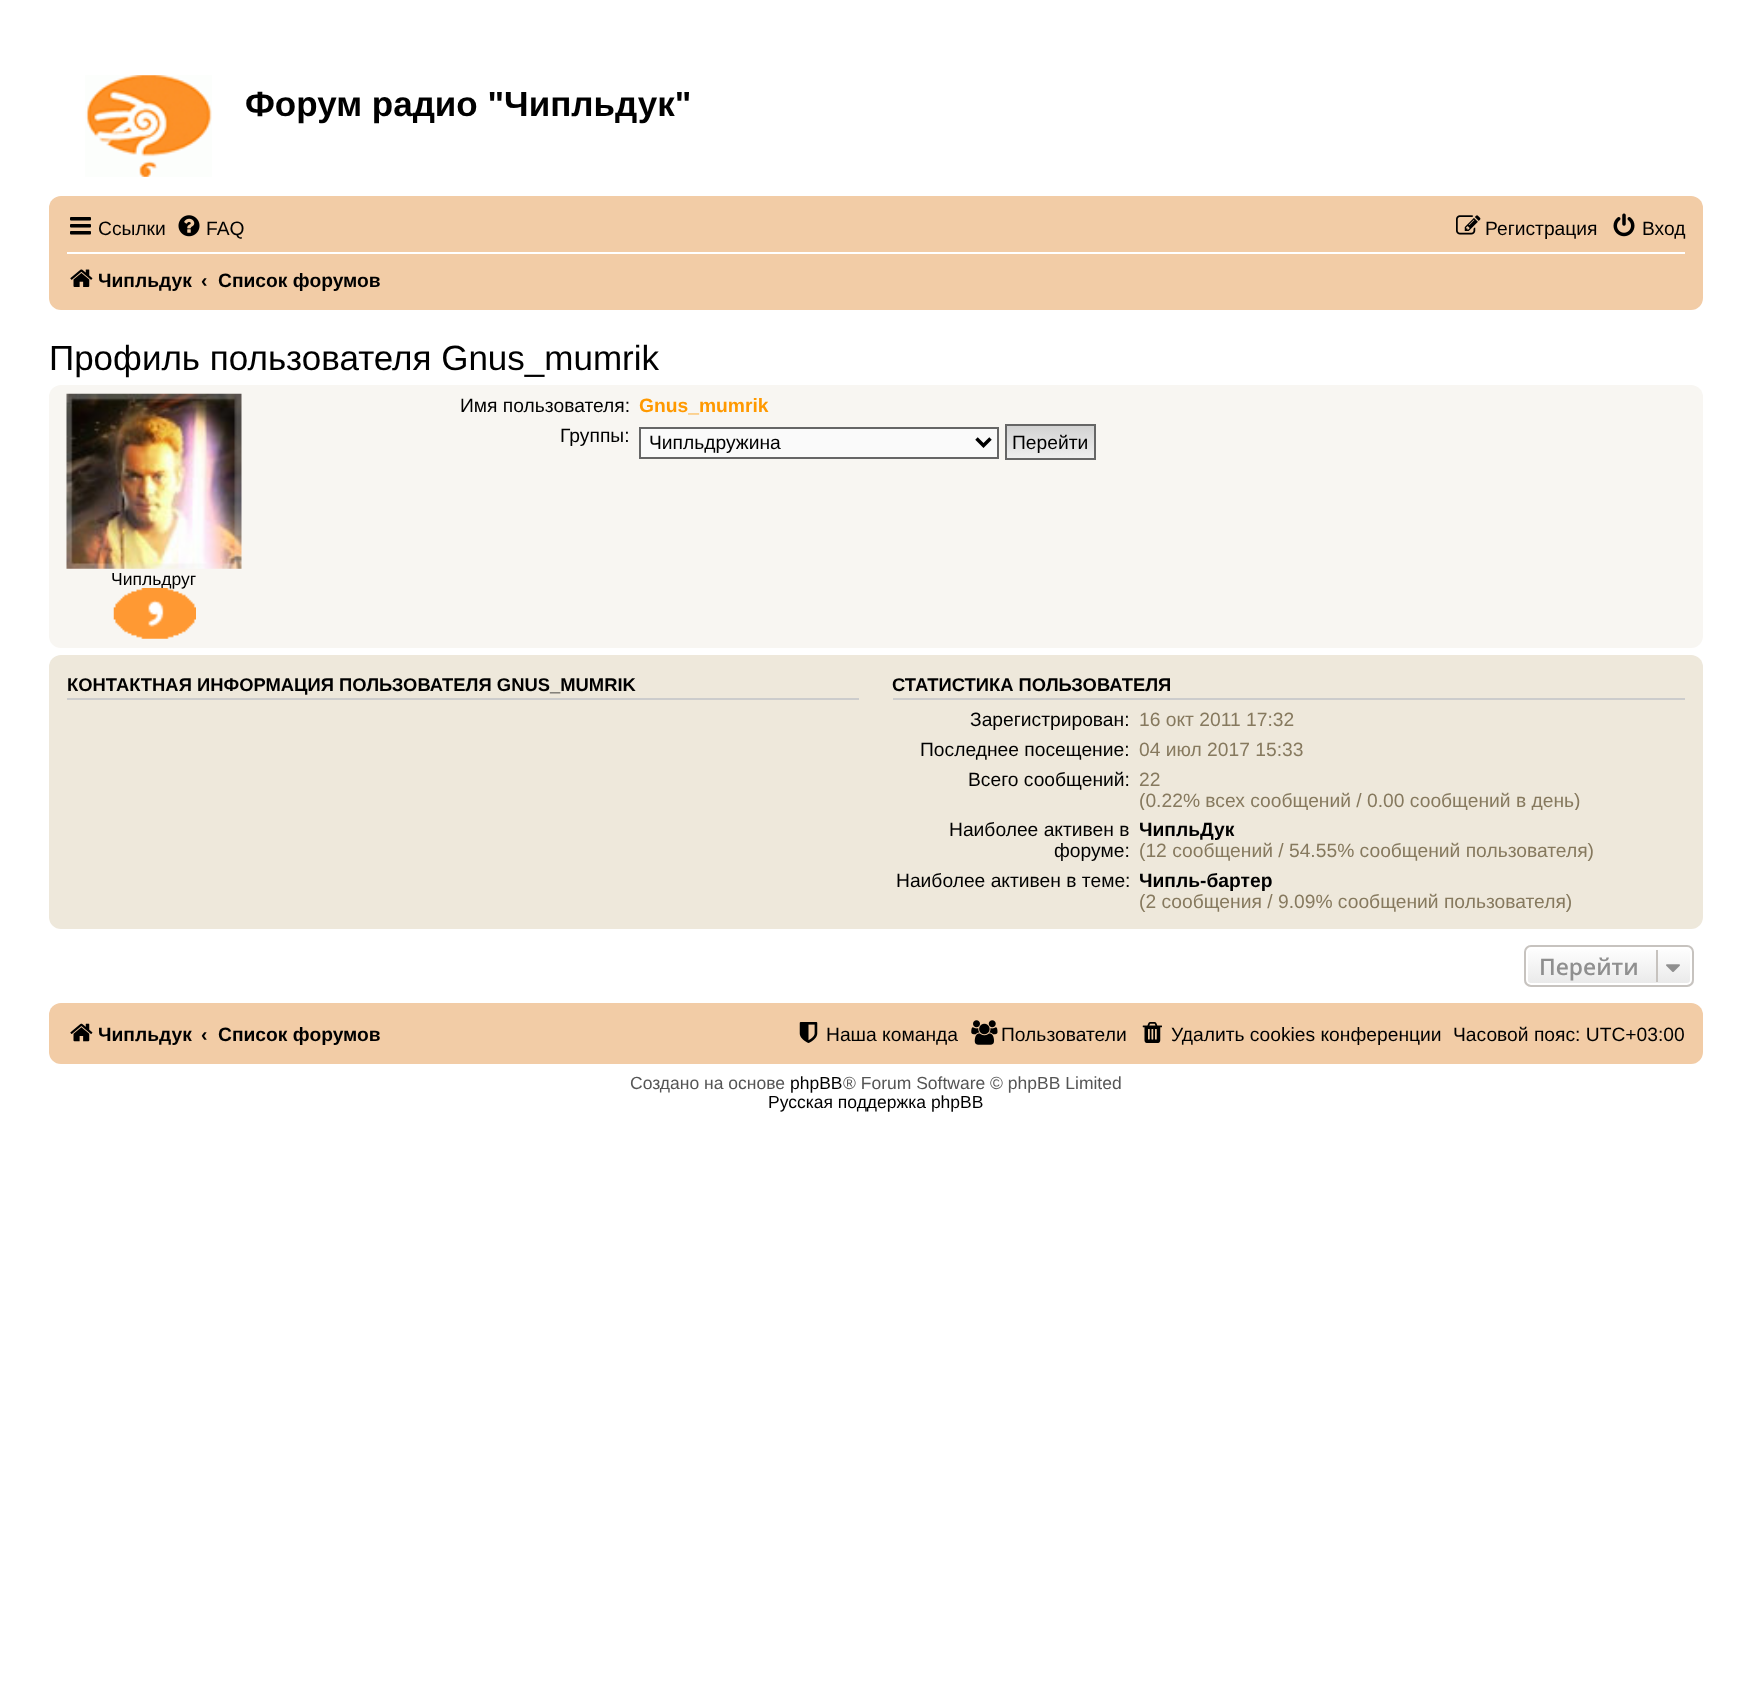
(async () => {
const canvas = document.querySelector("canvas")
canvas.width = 1751
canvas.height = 1701
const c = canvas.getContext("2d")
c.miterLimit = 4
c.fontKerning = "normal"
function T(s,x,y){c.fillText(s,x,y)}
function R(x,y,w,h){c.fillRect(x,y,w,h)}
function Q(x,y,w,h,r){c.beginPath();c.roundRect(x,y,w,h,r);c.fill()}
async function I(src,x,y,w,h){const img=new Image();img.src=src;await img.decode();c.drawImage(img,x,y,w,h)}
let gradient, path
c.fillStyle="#fff"
R(0,0,1751,1701)
await I("1.png",85,75,127,102)
c.font="bold 35px Liberation Sans"
c.fillStyle="#000"
T("Форум радио \"Чипльдук\"",245,116)
c.fillStyle="#f2cca6"
Q(49,196,1654,114,12)
await I("2.png",70,217,21,18)
c.font="19.25px Liberation Sans"
c.fillStyle="#000"
T("Ссылки",98,235)
await I("3.png",178,215,22,22)
T("FAQ",206,235)
await I("4.png",1456,215,25,20)
T("Регистрация",1485,235)
await I("5.png",1613,213,22,24)
T("Вход",1642,235)
c.fillStyle="#fff"
R(67,252,1618,2)
await I("6.png",70,269,23,18)
c.font="bold 19.25px Liberation Sans"
c.fillStyle="#000"
T("Чипльдук",98,287)
T("‹",201,287)
T("Список форумов",218,287)
c.font="35px Liberation Sans"
T("Профиль пользователя Gnus_mumrik",49,370)
c.fillStyle="#f8f6f2"
Q(49,385,1654,263,12)
c.font="19.25px Liberation Sans"
c.fillStyle="#000"
T("Имя пользователя:",460,412)
c.font="bold 19.25px Liberation Sans"
c.fillStyle="#f90"
T("Gnus_mumrik",639,412)
c.font="19.25px Liberation Sans"
c.fillStyle="#000"
T("Группы:",560,442)
c.fillStyle="#fafafa"
c.beginPath()
c.rect(640,428,358,30)
c.fill()
c.strokeStyle="#666"
c.lineWidth=2
c.stroke()
path = new Path2D("M976.5 438.5l7 7l7-7")
c.strokeStyle="#000"
c.lineWidth=3.5
c.stroke(path)
c.fillStyle="#000"
T("Чипльдружина",649,449)
gradient = c.createLinearGradient(1050,425,1050,459)
gradient.addColorStop(0,"#d2d2d2")
gradient.addColorStop(1,"#efefef")
c.fillStyle = gradient
R(1007,426,87,32)
c.strokeStyle="#666"
c.lineWidth=2
c.strokeRect(1006,425,89,34)
c.fillStyle="#000"
T("Перейти",1012,449)
await I("7.png",66,393,176,176)
c.font="17.5px Liberation Sans"
T("Чипльдруг",111,585)
await I("8.png",113,588,83,51)
c.fillStyle="#eee8db"
Q(49,655,1654,274,12)
c.fillStyle="#ccc"
R(67,698,792,2)
c.font="bold 18.4px Liberation Sans"
c.fillStyle="#000"
T("КОНТАКТНАЯ ИНФОРМАЦИЯ ПОЛЬЗОВАТЕЛЯ GNUS_MUMRIK",67,691)
c.fillStyle="#ccc"
R(893,698,792,2)
c.fillStyle="#000"
T("СТАТИСТИКА ПОЛЬЗОВАТЕЛЯ",892,691)
c.font="19.25px Liberation Sans"
T("Зарегистрирован:",970,726)
c.fillStyle="#86795e"
T("16 окт 2011 17:32",1139,726)
c.fillStyle="#000"
T("Последнее посещение:",920,756)
c.fillStyle="#86795e"
T("04 июл 2017 15:33",1139,756)
c.fillStyle="#000"
T("Всего сообщений:",968,786)
c.fillStyle="#86795e"
T("22",1139,786)
c.save()
c.beginPath()
c.rect(1131,768,523,42)
c.clip()
T("(0.22% всех сообщений / 0.00 сообщений в день)",1139,807)
c.restore()
c.fillStyle="#000"
T("Наиболее активен в",949,836)
T("форуме:",1054,857)
c.font="bold 19.25px Liberation Sans"
T("ЧипльДук",1139,836)
c.font="19.25px Liberation Sans"
c.fillStyle="#86795e"
T("(12 сообщений / 54.55% сообщений пользователя)",1139,857)
c.fillStyle="#000"
T("Наиболее активен в теме:",896,887)
c.font="bold 19.25px Liberation Sans"
T("Чипль-бартер",1139,887)
c.font="19.25px Liberation Sans"
c.fillStyle="#86795e"
T("(2 сообщения / 9.09% сообщений пользователя)",1139,908)
c.save()
c.beginPath()
c.roundRect(1524,945,170,42,7)
c.clip()
gradient = c.createLinearGradient(1609,947,1609,985)
gradient.addColorStop(0,"#fff")
gradient.addColorStop(1,"#e9e9e9")
c.fillStyle = gradient
R(1524,947,170,38)
c.restore()
c.beginPath()
c.roundRect(1527,948,164,36,4)
c.strokeStyle="#fff"
c.stroke()
c.beginPath()
c.roundRect(1525,946,168,40,6)
c.strokeStyle="#c7c3bf"
c.stroke()
c.font="600 22.75px Open Sans"
c.fillStyle="#8f8f8f"
T("Перейти",1539,975)
c.fillStyle="#c7c3bf"
R(1656,950,2,32)
await I("9.png",1666,964,14,8)
c.fillStyle="#f2cca6"
Q(49,1003,1654,61,12)
await I("10.png",70,1023,23,19)
c.font="bold 19.25px Liberation Sans"
c.fillStyle="#000"
T("Чипльдук",98,1041)
T("‹",201,1041)
T("Список форумов",218,1041)
await I("11.png",799,1022,19,21)
c.font="19.25px Liberation Sans"
T("Наша команда",826,1041)
await I("12.png",971,1020,27,25)
T("Пользователи",1001,1041)
await I("13.png",1142,1022,20,21)
T("Удалить cookies конференции",1171,1041)
T("Часовой пояс: UTC+03:00",1453,1041)
c.font="17.5px Liberation Sans"
c.fillStyle="#555"
T("Создано на основе",630,1089)
c.fillStyle="#000"
T("phpBB",790,1089)
c.fillStyle="#555"
T("® Forum Software © phpBB Limited",843,1089)
c.fillStyle="#000"
T("Русская поддержка phpBB",768,1108)
})()
